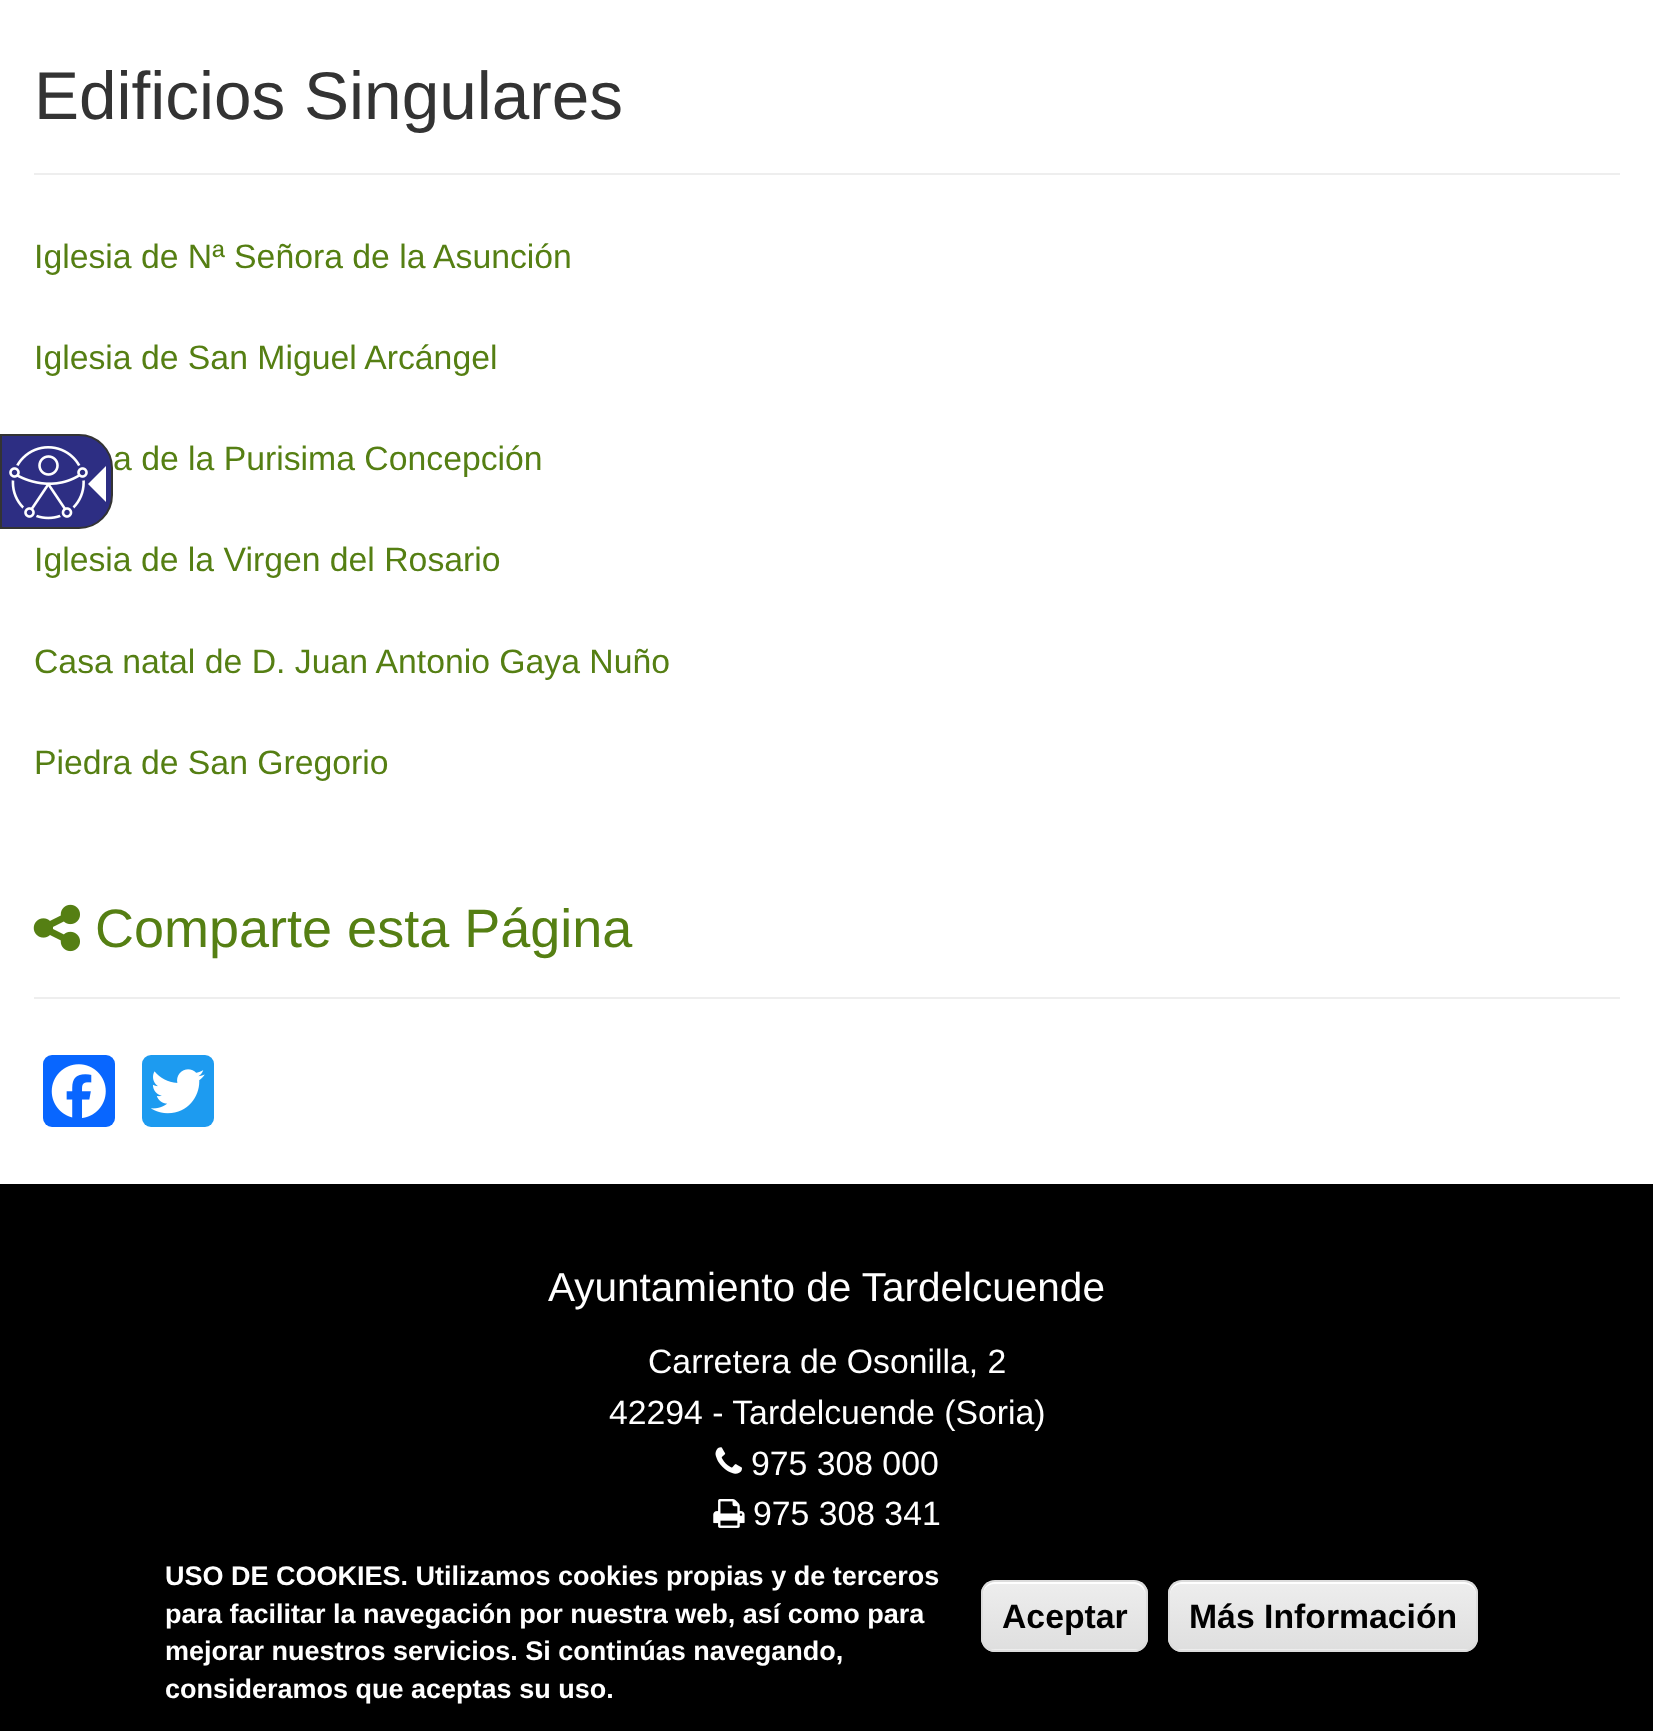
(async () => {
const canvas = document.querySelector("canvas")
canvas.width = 1653
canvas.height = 1731
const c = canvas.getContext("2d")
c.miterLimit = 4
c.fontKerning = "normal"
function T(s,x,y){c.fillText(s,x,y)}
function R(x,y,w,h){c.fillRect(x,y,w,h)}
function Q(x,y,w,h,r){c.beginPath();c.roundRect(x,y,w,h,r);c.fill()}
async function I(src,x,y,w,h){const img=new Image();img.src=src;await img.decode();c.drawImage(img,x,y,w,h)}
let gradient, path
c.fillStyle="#fff"
R(0,0,1653,1731)
c.fillStyle="#eee"
R(34,173,1586,2)
c.font="67.5px Liberation Sans"
c.fillStyle="#333"
T("Edificios Singulares",34,119)
c.font="33.75px Liberation Sans"
c.fillStyle="#557f13"
T("Iglesia de Nª Señora de la Asunción",34,268)
T("Iglesia de San Miguel Arcángel",34,369)
T("a de la Purisima Concepción",113,470)
T("Iglesia de la Virgen del Rosario",34,571)
T("Casa natal de D. Juan Antonio Gaya Nuño",34,673)
T("Piedra de San Gregorio",34,774)
c.fillStyle="#eee"
R(34,997,1586,2)
await I("1.png",33,904,47,48)
c.font="54px Liberation Sans"
c.fillStyle="#557f13"
T("Comparte esta Página",95,947)
c.fillStyle="#0866ff"
Q(43,1055,72,72,9)
await I("2.png",51,1064,55,54)
c.fillStyle="#1d9bf0"
Q(142,1055,72,72,9)
await I("3.png",151,1069,54,45)
c.fillStyle="#2d2e83"
c.beginPath()
c.roundRect(1,435,111,93,[0,33,33,0])
c.fill()
c.strokeStyle="#333"
c.lineWidth=2
c.stroke()
await I("4.png",9,446,79,74)
c.fillStyle="#fff"
path = new Path2D("M106 466v36l-18-18z")
c.fill(path)
c.fillStyle="#000"
R(0,1184,1653,547)
c.font="40.5px Liberation Sans"
c.fillStyle="#fff"
T("Ayuntamiento de Tardelcuende",548,1301)
c.font="33.75px Liberation Sans"
T("Carretera de Osonilla, 2",648,1373)
T("42294 - Tardelcuende (Soria)",609,1424)
await I("5.png",715,1447,27,27)
T("975 308 000",751,1475)
await I("6.png",713,1499,32,29)
T("975 308 341",753,1525)
c.font="bold 27px Liberation Sans"
T("USO DE COOKIES. Utilizamos cookies propias y de terceros",165,1585)
T("para facilitar la navegación por nuestra web, así como para",165,1623)
T("mejorar nuestros servicios. Si continúas navegando,",165,1660)
T("consideramos que aceptas su uso.",165,1698)
c.save()
c.beginPath()
c.roundRect(981,1580,167,72,14)
c.clip()
gradient = c.createLinearGradient(1064,1582,1064,1649)
gradient.addColorStop(.05,"#ededed")
gradient.addColorStop(1,"#dfdfdf")
c.fillStyle = gradient
R(981,1582,167,67)
gradient = c.createLinearGradient(1064,1649,1064,1717)
gradient.addColorStop(.05,"#ededed")
gradient.addColorStop(1,"#dfdfdf")
c.fillStyle = gradient
R(981,1649,167,3)
c.restore()
path = new Path2D("M994 1584h140c6 0 11 5 11 11c0-19-22-13-34-13h-94c-12 0-34-6-34 13c0-6 5-11 11-11z")
c.fill(path)
c.beginPath()
c.roundRect(982,1581,165,70,13)
c.strokeStyle="#dcdcdc"
c.stroke()
c.font="bold 33.75px Liberation Sans"
c.fillStyle="#000"
T("Aceptar",1002,1628)
c.save()
c.beginPath()
c.roundRect(1168,1580,310,72,14)
c.clip()
gradient = c.createLinearGradient(1323,1582,1323,1649)
gradient.addColorStop(.05,"#ededed")
gradient.addColorStop(1,"#dfdfdf")
c.fillStyle = gradient
R(1168,1582,310,67)
gradient = c.createLinearGradient(1323,1649,1323,1717)
gradient.addColorStop(.05,"#ededed")
gradient.addColorStop(1,"#dfdfdf")
c.fillStyle = gradient
R(1168,1649,310,3)
c.restore()
c.fillStyle="#fff"
path = new Path2D("M1181 1584h284c6 0 11 5 11 11v-2c0-6-5-11-11-11h-284c-6 0-11 5-11 11v2c0-6 5-11 11-11z")
c.fill(path)
c.beginPath()
c.roundRect(1169,1581,308,70,13)
c.stroke()
c.fillStyle="#000"
T("Más Información",1189,1628)
})()
